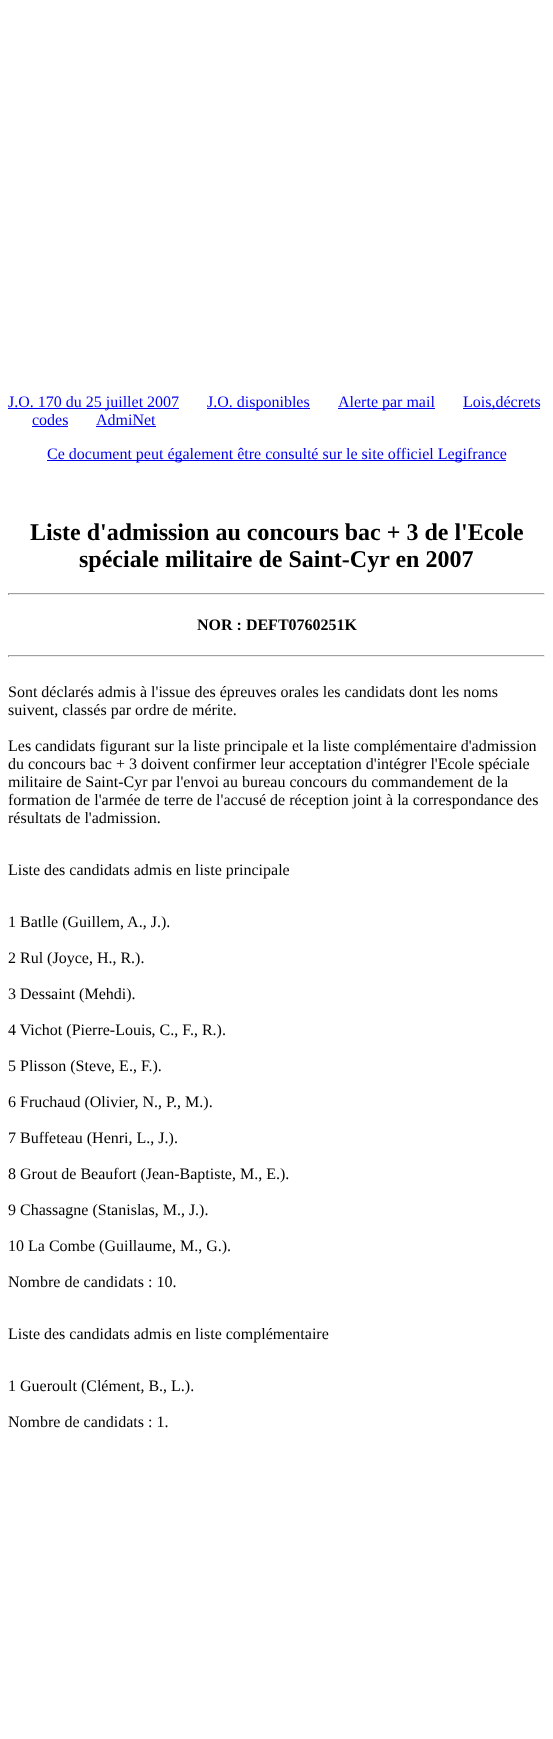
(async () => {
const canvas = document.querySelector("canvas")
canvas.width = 553
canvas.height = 1739
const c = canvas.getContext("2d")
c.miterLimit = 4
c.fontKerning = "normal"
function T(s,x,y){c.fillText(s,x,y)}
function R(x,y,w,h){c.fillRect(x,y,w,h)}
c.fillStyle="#fff"
R(0,0,553,1739)
c.fillStyle="#00e"
R(8,408,171,1)
c.font="16px Liberation Serif"
T("J.O. 170 du 25 juillet 2007",8,407)
R(207,408,103,1)
T("J.O. disponibles",207,407)
R(338,408,97,1)
T("Alerte par mail",338,407)
R(463,408,77,1)
T("Lois,décrets",463,407)
T("codes",32,425)
R(32,426,36,1)
T("AdmiNet",96,425)
R(96,426,60,1)
R(47,460,459,1)
T("Ce document peut également être consulté sur le site officiel Legifrance",47,459)
c.font="bold 24px Liberation Serif"
c.fillStyle="#000"
T("Liste d'admission au concours bac + 3 de l'Ecole",30,540)
T("spéciale militaire de Saint-Cyr en 2007",79,567)
c.fillStyle="#9f9f9f"
R(8,593,537,1)
c.fillStyle="#eee"
R(544,593,1,2)
R(8,594,537,1)
c.fillStyle="#9f9f9f"
R(8,593,1,2)
c.font="bold 16px Liberation Serif"
c.fillStyle="#000"
T("NOR : DEFT0760251K",197,630)
c.fillStyle="#9f9f9f"
R(8,655,537,1)
c.fillStyle="#eee"
R(544,655,1,2)
R(8,656,537,1)
c.fillStyle="#9f9f9f"
R(8,655,1,2)
c.font="16px Liberation Serif"
c.fillStyle="#000"
T("Sont déclarés admis à l'issue des épreuves orales les candidats dont les noms",8,697)
T("suivent, classés par ordre de mérite.",8,715)
T("Les candidats figurant sur la liste principale et la liste complémentaire d'admission",8,751)
T("du concours bac + 3 doivent confirmer leur acceptation d'intégrer l'Ecole spéciale",8,769)
T("militaire de Saint-Cyr par l'envoi au bureau concours du commandement de la",8,787)
T("formation de l'armée de terre de l'accusé de réception joint à la correspondance des",8,805)
T("résultats de l'admission.",8,823)
T("Liste des candidats admis en liste principale",8,875)
T("1 Batlle (Guillem, A., J.).",8,927)
T("2 Rul (Joyce, H., R.).",8,963)
T("3 Dessaint (Mehdi).",8,999)
T("4 Vichot (Pierre-Louis, C., F., R.).",8,1035)
T("5 Plisson (Steve, E., F.).",8,1071)
T("6 Fruchaud (Olivier, N., P., M.).",8,1107)
T("7 Buffeteau (Henri, L., J.).",8,1143)
T("8 Grout de Beaufort (Jean-Baptiste, M., E.).",8,1179)
T("9 Chassagne (Stanislas, M., J.).",8,1215)
T("10 La Combe (Guillaume, M., G.).",8,1251)
T("Nombre de candidats : 10.",8,1287)
T("Liste des candidats admis en liste complémentaire",8,1339)
T("1 Gueroult (Clément, B., L.).",8,1391)
T("Nombre de candidats : 1.",8,1427)
})()
